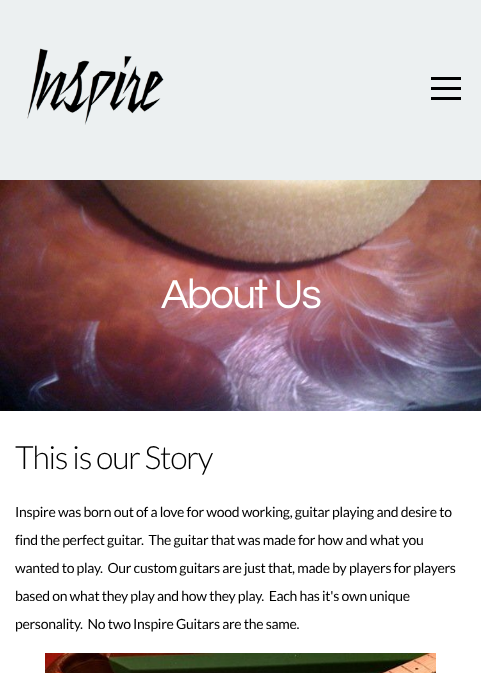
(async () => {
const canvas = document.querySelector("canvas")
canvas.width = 481
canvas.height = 673
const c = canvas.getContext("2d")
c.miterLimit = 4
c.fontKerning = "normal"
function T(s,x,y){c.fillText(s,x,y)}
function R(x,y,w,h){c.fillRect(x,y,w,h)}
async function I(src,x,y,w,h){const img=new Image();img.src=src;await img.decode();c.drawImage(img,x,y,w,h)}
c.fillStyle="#ecf0f1"
R(0,0,481,673)
await I("1.png",27,48,137,77)
c.fillStyle="#000"
R(431,77,30,3)
R(431,87,30,3)
R(431,97,30,3)
await I("2.png",0,180,481,231)
c.letterSpacing="-1.75px"
c.font="42px Questrial"
c.fillStyle="#fff"
T("About Us",161,308)
R(0,411,481,262)
c.letterSpacing="-1.25px"
c.font="300 32px Lato"
c.fillStyle="#000"
T("This is our Story",15,469)
c.letterSpacing="-0.28px"
c.font="14px Lato"
T("Inspire was born out of a love for wood working, guitar playing and desire to",15,517)
T("find the perfect guitar.  The guitar that was made for how and what you",15,545)
T("wanted to play.  Our custom guitars are just that, made by players for players",15,573)
T("based on what they play and how they play.  Each has it's own unique",15,601)
T("personality.  No two Inspire Guitars are the same.",15,629)
await I("3.png",45,653,391,20)
})()
